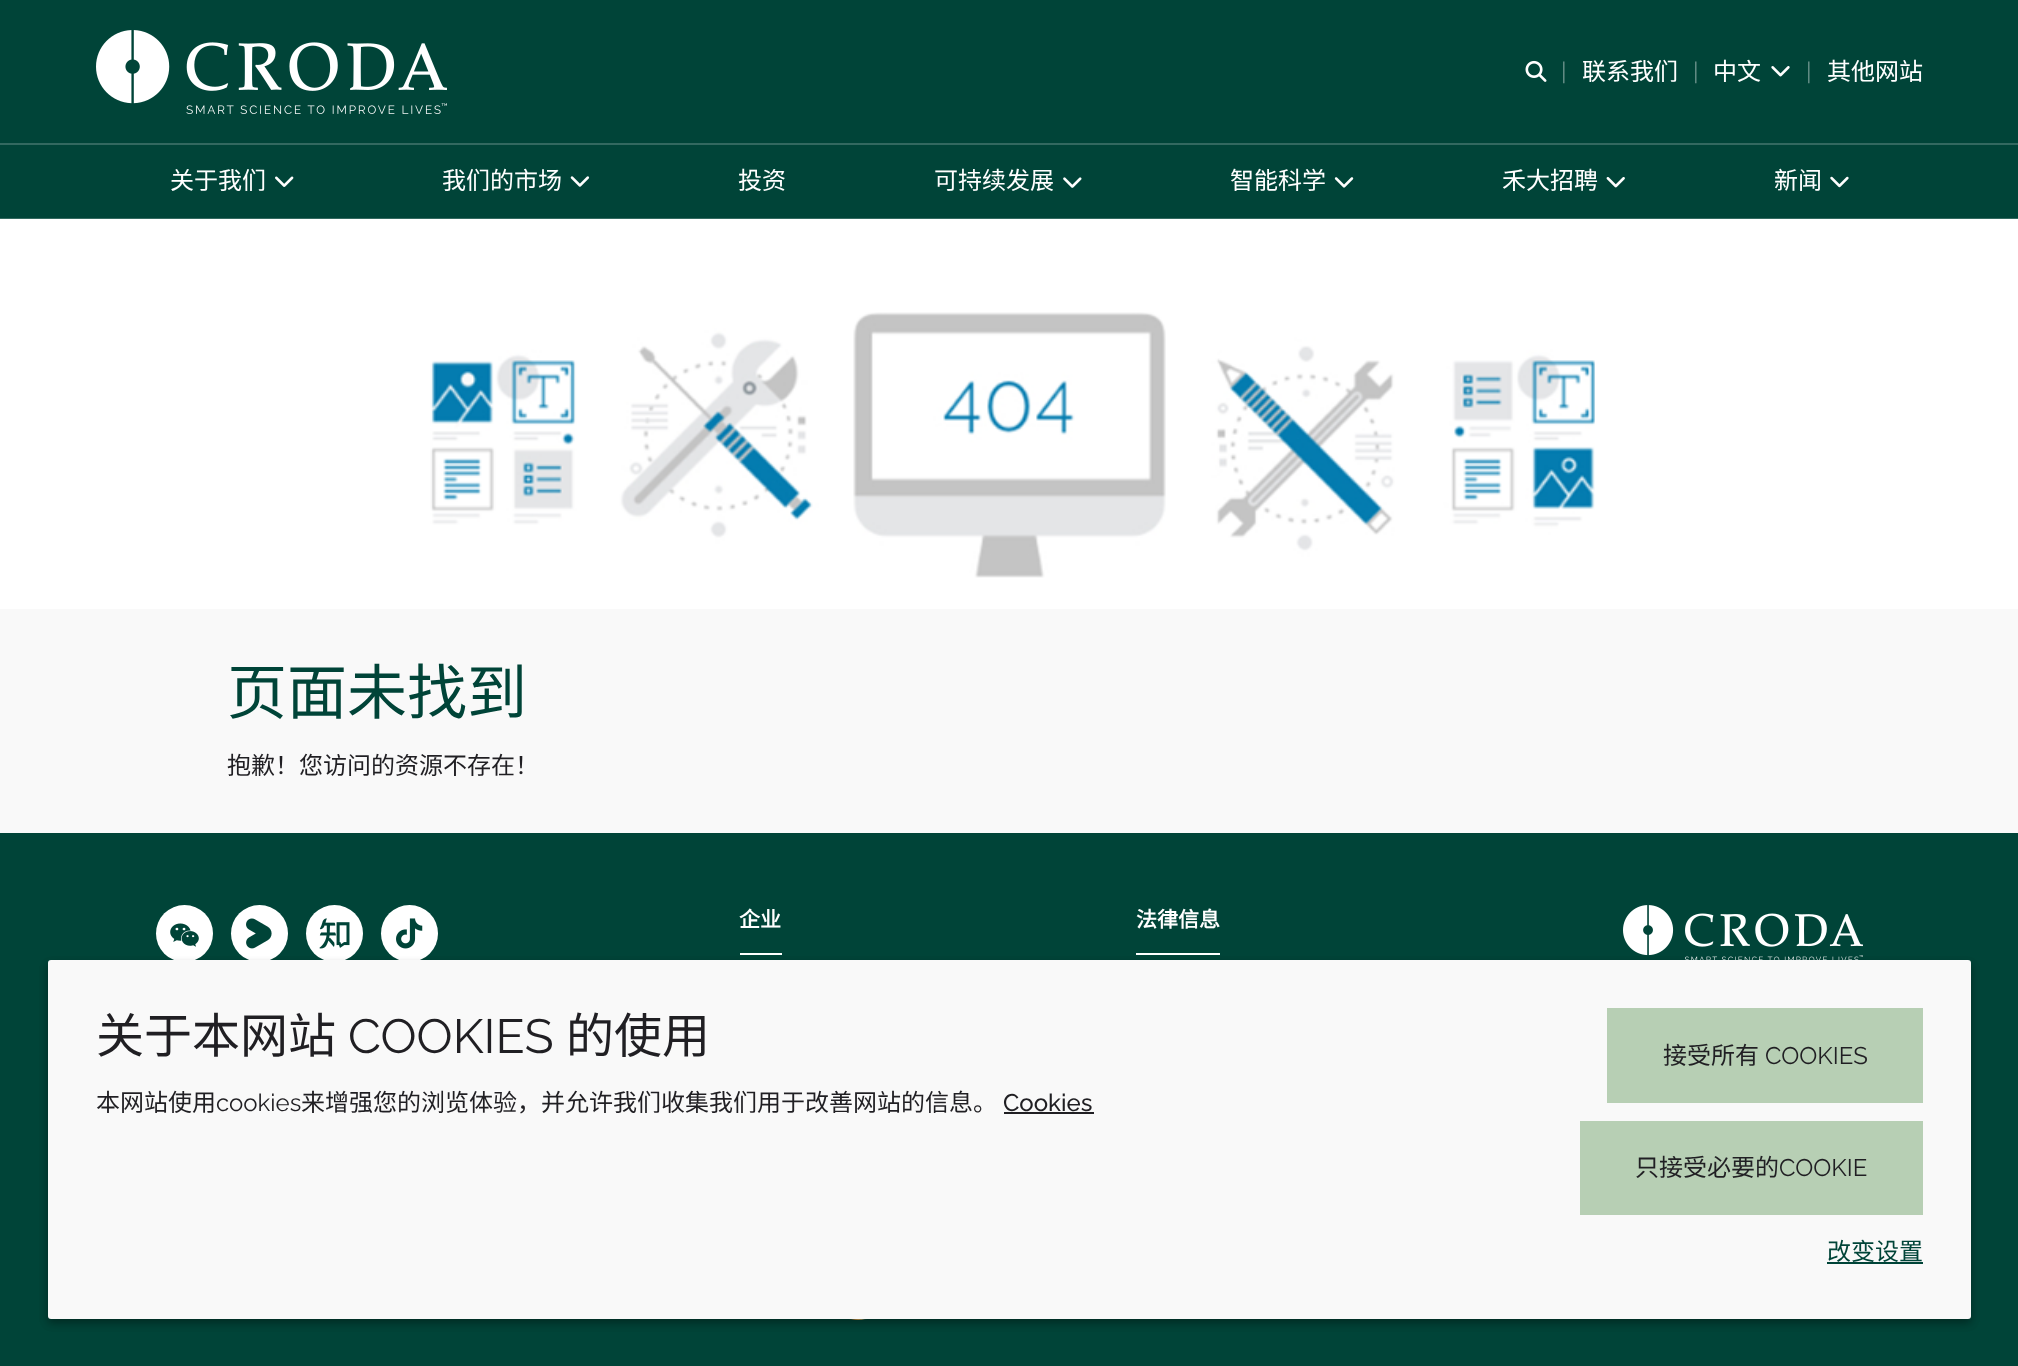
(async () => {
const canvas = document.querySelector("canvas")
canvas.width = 2018
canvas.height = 1366
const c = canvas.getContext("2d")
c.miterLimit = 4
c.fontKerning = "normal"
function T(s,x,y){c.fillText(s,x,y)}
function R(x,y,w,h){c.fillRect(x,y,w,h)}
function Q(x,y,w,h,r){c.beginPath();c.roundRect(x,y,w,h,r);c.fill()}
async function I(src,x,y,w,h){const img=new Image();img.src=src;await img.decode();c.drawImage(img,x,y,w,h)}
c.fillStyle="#fff"
R(0,0,2018,1366)
c.fillStyle="#004438"
R(0,0,2018,218)
c.fillStyle="#336960"
R(0,218,2018,1)
await I("1.png",96,30,351,84)
await I("2.png",1525,60,22,22)
c.font="24px Raleway"
c.fillStyle="#668f88"
T("|",1561,80)
c.font="24px Noto Sans CJK SC"
c.fillStyle="#fff"
T("联系我们",1582,80)
c.font="24px Raleway"
c.fillStyle="#668f88"
T("|",1693,80)
c.font="24px Noto Sans CJK SC"
c.fillStyle="#fff"
T("中文",1713,80)
await I("3.png",1771,66,19,11)
c.font="24px Raleway"
c.fillStyle="#668f88"
T("|",1806,80)
c.font="24px Noto Sans CJK SC"
c.fillStyle="#fff"
T("其他网站",1827,80)
c.fillStyle="#336960"
R(0,143,2018,2)
c.fillStyle="#fff"
T("关于我们",170,189)
await I("4.png",275,176,19,11)
T("我们的市场",442,189)
await I("5.png",570,176,20,11)
T("投资",738,189)
T("可持续发展",934,189)
await I("6.png",1063,177,19,11)
T("智能科学",1230,189)
await I("7.png",1334,177,20,11)
T("禾大招聘",1502,189)
await I("8.png",1606,177,19,11)
T("新闻",1774,189)
await I("9.png",1830,176,19,12)
await I("10.png",430,312,1165,266)
c.fillStyle="#f9f9f9"
R(0,609,2018,224)
c.font="60px Noto Sans CJK SC"
c.fillStyle="#004438"
T("页面未找到",227,714)
c.font="24px Noto Sans CJK SC"
c.fillStyle="#201f23"
T("抱歉！您访问的资源不存在！",227,774)
c.fillStyle="#004438"
R(0,833,2018,533)
c.fillStyle="#fff"
c.beginPath()
c.arc(184.5,933.5,28.5,0,7)
c.fill()
await I("11.png",170,923,29,24)
c.beginPath()
c.arc(259.5,933.5,28.5,0,7)
c.fill()
await I("12.png",246,918,26,31)
c.beginPath()
c.arc(334.5,933.5,28.5,0,7)
c.fill()
await I("13.png",319,918,31,31)
c.beginPath()
c.arc(409.5,933.5,28.5,0,7)
c.fill()
await I("14.png",396,918,27,31)
R(740,953,42,2)
c.font="bold 21px Noto Sans CJK SC"
T("企业",739,927)
R(1136,953,84,2)
T("法律信息",1136,927)
await I("15.png",1623,905,240,55)
await I("16.png",849,1319,18,1)
c.fillStyle="#0000003b"
c.filter="blur(4.5px)"
c.beginPath()
c.roundRect(48,965,1923,358,3)
c.fill()
c.filter="none"
c.fillStyle="#00000029"
c.filter="blur(4.5px)"
c.beginPath()
c.roundRect(48,965,1923,358,3)
c.fill()
c.filter="none"
c.fillStyle="#f9f9f9"
Q(48,960,1923,359,3)
c.font="48px Noto Sans CJK SC"
c.fillStyle="#201f23"
T("关于本网站",96,1053)
c.font="48px Raleway"
T("COOKIES",348,1053)
c.font="48px Noto Sans CJK SC"
T("的使用",566,1053)
c.font="24px Noto Sans CJK SC"
T("本网站使用",96,1111)
c.font="24px Raleway"
T("cookies",216,1111)
c.font="24px Noto Sans CJK SC"
T("来增强您的浏览体验，并允许我们收集我们用于改善网站的信息。",301,1111)
c.font="500 24px Raleway"
T("Cookies",1003,1111)
R(1004,1112,90,2)
c.fillStyle="#b7cfb4"
R(1607,1008,316,95)
c.font="24px Noto Sans CJK SC"
c.fillStyle="#201f23"
T("接受所有",1663,1064)
c.font="24px Raleway"
T("COOKIES",1765,1064)
c.fillStyle="#b7cfb4"
R(1580,1121,343,94)
c.font="24px Noto Sans CJK SC"
c.fillStyle="#201f23"
T("只接受必要的",1635,1176)
c.font="24px Raleway"
T("COOKIE",1779,1176)
c.font="24px Noto Sans CJK SC"
c.fillStyle="#004438"
T("改变设置",1827,1260)
R(1827,1262,96,2)
})()
